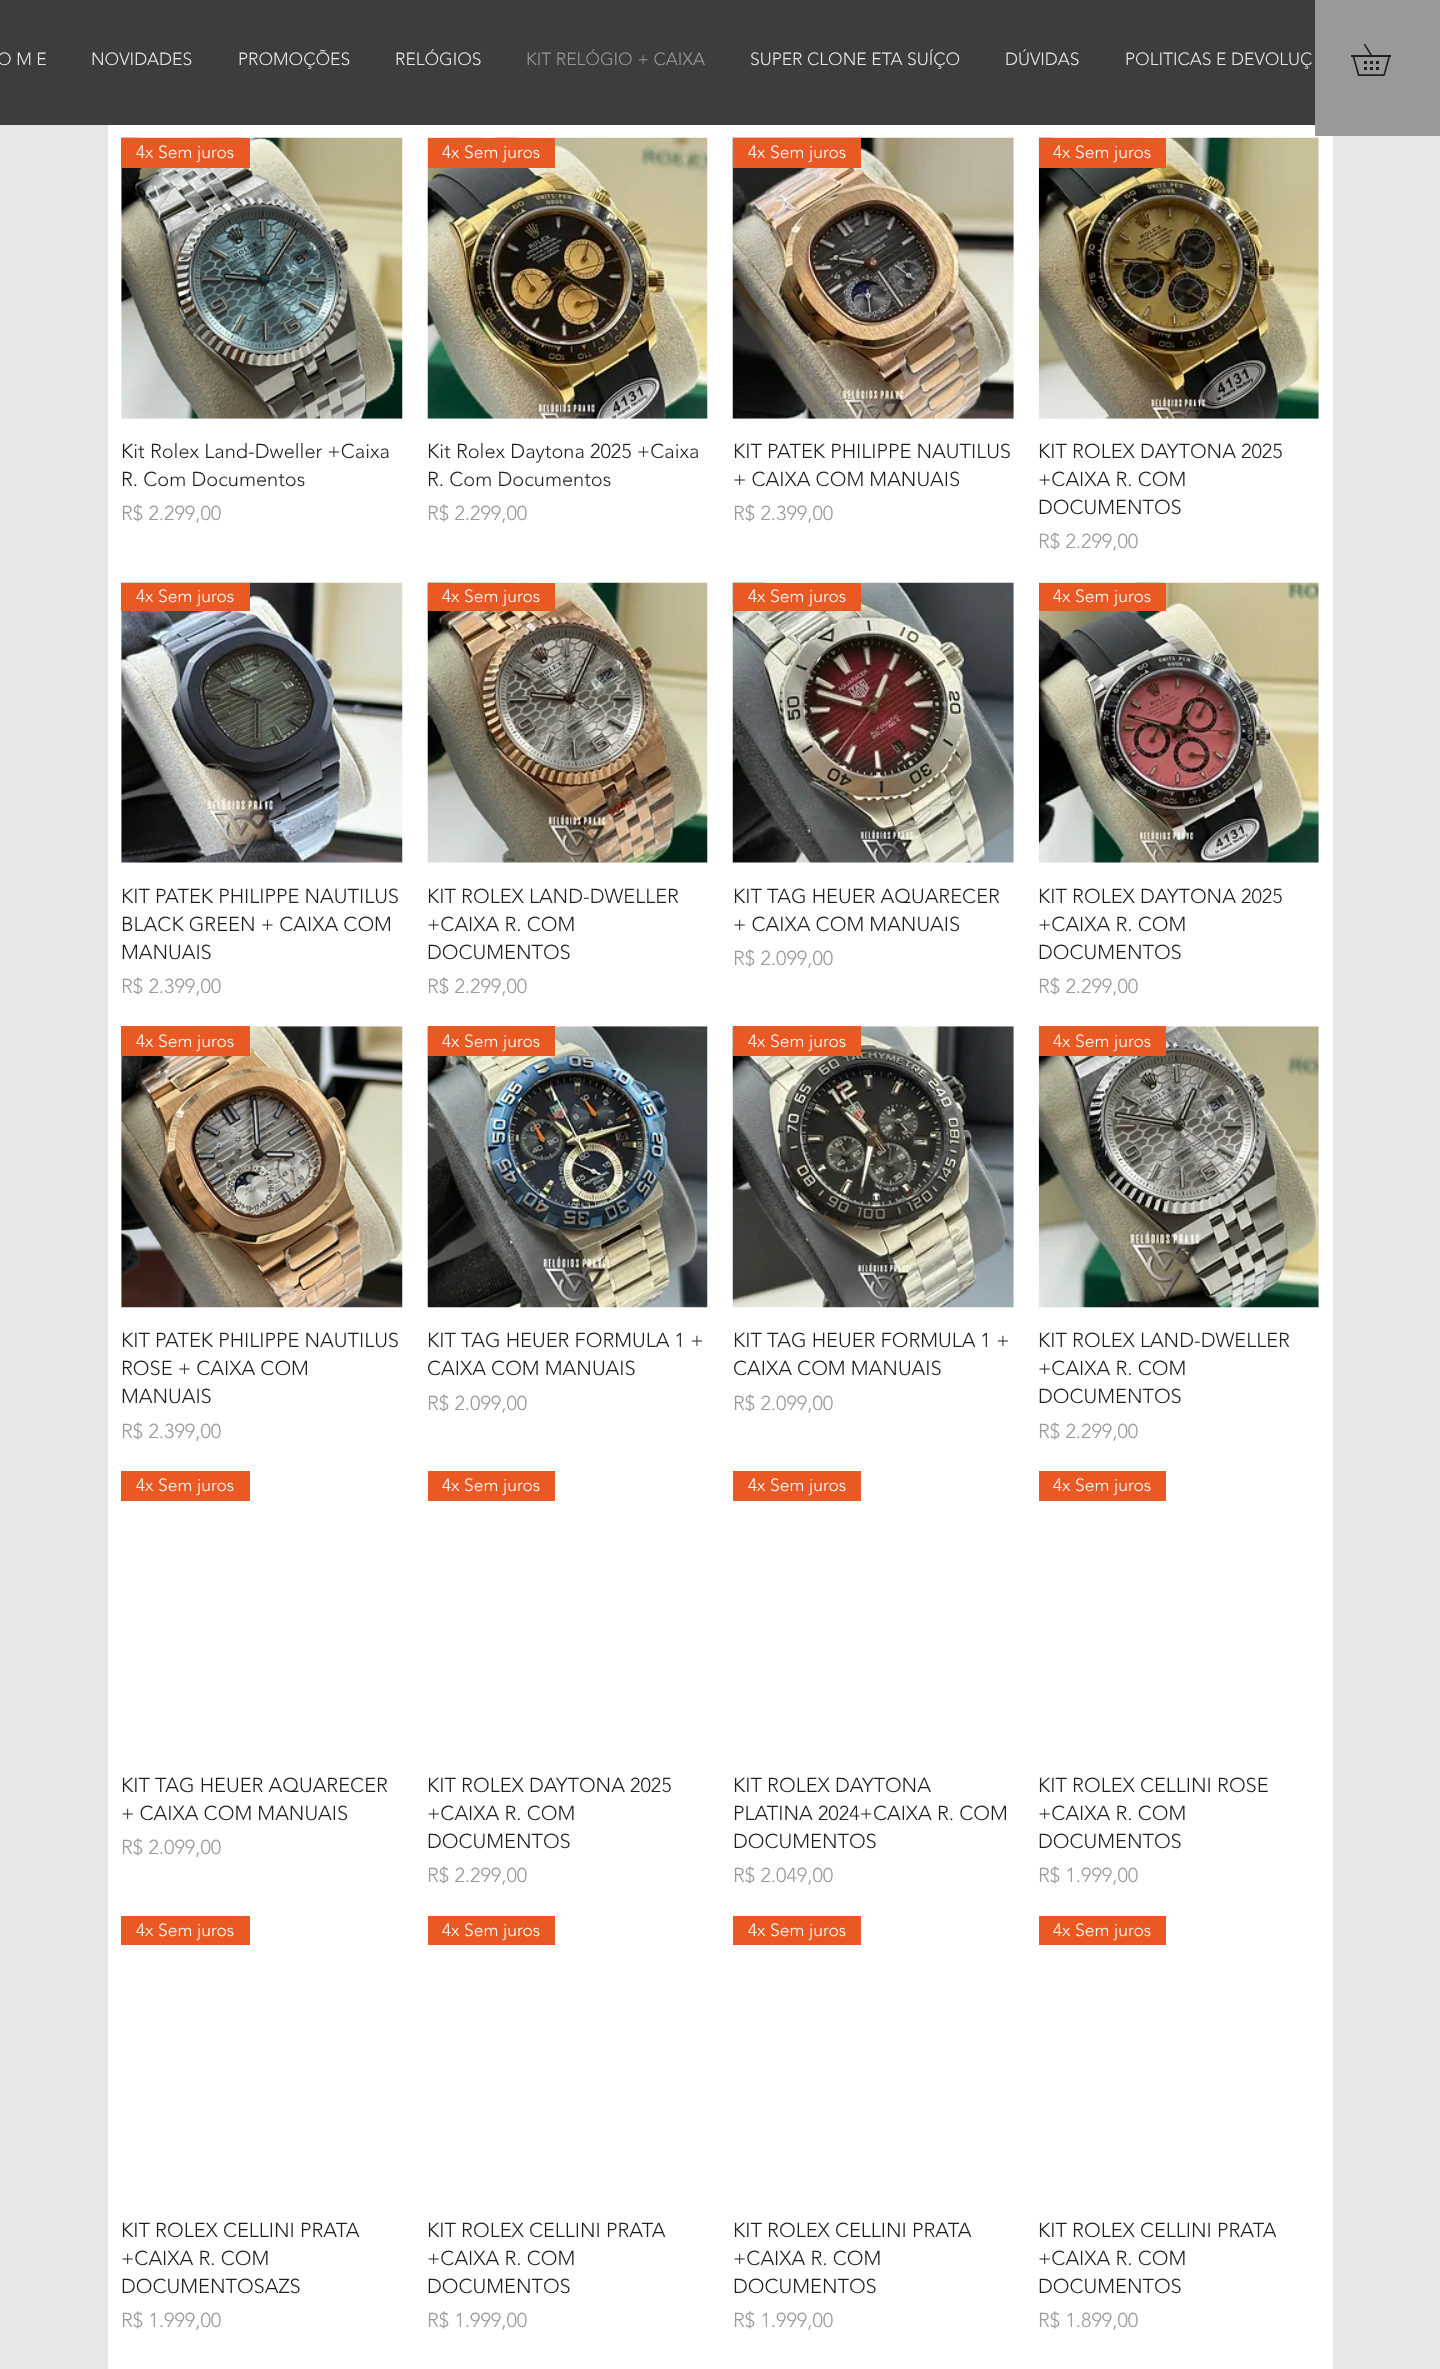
(async () => {
const canvas = document.querySelector("canvas")
canvas.width = 1440
canvas.height = 2369
const c = canvas.getContext("2d")
c.miterLimit = 4
c.fontKerning = "normal"
function T(s,x,y){c.fillText(s,x,y)}
function R(x,y,w,h){c.fillRect(x,y,w,h)}
async function I(src,x,y,w,h){const img=new Image();img.src=src;await img.decode();c.drawImage(img,x,y,w,h)}
c.fillStyle="#e8e6e6"
R(0,0,1440,2369)
c.fillStyle="#3d3d3d"
R(0,0,1315,125)
c.font="300 17.5px 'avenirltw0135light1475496'"
c.fillStyle="#e8e6e6"
T("O M E",-3,65)
T("NOVIDADES",91,65)
T("PROMOÇÕES",238,65)
T("RELÓGIOS",395,65)
c.fillStyle="#999997"
T("KIT RELÓGIO + CAIXA",526,65)
c.fillStyle="#e8e6e6"
T("SUPER CLONE ETA SUÍÇO",750,65)
T("DÚVIDAS",1005,65)
T("POLITICAS E DEVOLUÇ",1125,65)
c.fillStyle="#fff"
R(108,125,1225,2244)
c.fillStyle="#999997"
R(1315,0,125,136)
await I("1.png",1351,43,40,33)
await I("2.png",121,137,282,282)
c.fillStyle="#ea5823"
R(121,138,129,30)
c.fillStyle="#fff"
T("4x Sem juros",136,158)
c.font="300 20px 'avenirltw0135light1475496'"
c.fillStyle="#1f1f1f"
T("Kit Rolex Land-Dweller +Caixa",121,458)
T("R. Com Documentos",121,486)
c.fillStyle="#999997"
T("R$ 2.299,00",121,520)
await I("3.png",427,137,281,282)
c.fillStyle="#ea5823"
R(428,138,127,30)
c.font="300 17.5px 'avenirltw0135light1475496'"
c.fillStyle="#fff"
T("4x Sem juros",442,158)
c.font="300 20px 'avenirltw0135light1475496'"
c.fillStyle="#1f1f1f"
T("Kit Rolex Daytona 2025 +Caixa",427,458)
T("R. Com Documentos",427,486)
c.fillStyle="#999997"
T("R$ 2.299,00",427,520)
await I("4.png",732,137,282,282)
c.fillStyle="#ea5823"
R(733,138,128,30)
c.font="300 17.5px 'avenirltw0135light1475496'"
c.fillStyle="#fff"
T("4x Sem juros",748,158)
c.font="300 20px 'avenirltw0135light1475496'"
c.fillStyle="#1f1f1f"
T("KIT PATEK PHILIPPE NAUTILUS",733,458)
T("+ CAIXA COM MANUAIS",733,486)
c.fillStyle="#999997"
T("R$ 2.399,00",733,520)
await I("5.png",1038,137,281,282)
c.fillStyle="#ea5823"
R(1039,138,127,30)
c.font="300 17.5px 'avenirltw0135light1475496'"
c.fillStyle="#fff"
T("4x Sem juros",1053,158)
c.font="300 20px 'avenirltw0135light1475496'"
c.fillStyle="#1f1f1f"
T("KIT ROLEX DAYTONA 2025",1038,458)
T("+CAIXA R. COM",1038,486)
T("DOCUMENTOS",1038,514)
c.fillStyle="#999997"
T("R$ 2.299,00",1038,548)
await I("6.png",121,582,282,281)
c.fillStyle="#ea5823"
R(121,583,129,28)
c.font="300 17.5px 'avenirltw0135light1475496'"
c.fillStyle="#fff"
T("4x Sem juros",136,602)
c.font="300 20px 'avenirltw0135light1475496'"
c.fillStyle="#1f1f1f"
T("KIT PATEK PHILIPPE NAUTILUS",121,903)
T("BLACK GREEN + CAIXA COM",121,931)
T("MANUAIS",121,959)
c.fillStyle="#999997"
T("R$ 2.399,00",121,993)
await I("7.png",427,582,281,281)
c.fillStyle="#ea5823"
R(428,583,127,28)
c.font="300 17.5px 'avenirltw0135light1475496'"
c.fillStyle="#fff"
T("4x Sem juros",442,602)
c.font="300 20px 'avenirltw0135light1475496'"
c.fillStyle="#1f1f1f"
T("KIT ROLEX LAND-DWELLER",427,903)
T("+CAIXA R. COM",427,931)
T("DOCUMENTOS",427,959)
c.fillStyle="#999997"
T("R$ 2.299,00",427,993)
await I("8.png",732,582,282,281)
c.fillStyle="#ea5823"
R(733,583,128,28)
c.font="300 17.5px 'avenirltw0135light1475496'"
c.fillStyle="#fff"
T("4x Sem juros",748,602)
c.font="300 20px 'avenirltw0135light1475496'"
c.fillStyle="#1f1f1f"
T("KIT TAG HEUER AQUARECER",733,903)
T("+ CAIXA COM MANUAIS",733,931)
c.fillStyle="#999997"
T("R$ 2.099,00",733,965)
await I("9.png",1038,582,281,281)
c.fillStyle="#ea5823"
R(1039,583,127,28)
c.font="300 17.5px 'avenirltw0135light1475496'"
c.fillStyle="#fff"
T("4x Sem juros",1053,602)
c.font="300 20px 'avenirltw0135light1475496'"
c.fillStyle="#1f1f1f"
T("KIT ROLEX DAYTONA 2025",1038,903)
T("+CAIXA R. COM",1038,931)
T("DOCUMENTOS",1038,959)
c.fillStyle="#999997"
T("R$ 2.299,00",1038,993)
await I("10.png",121,1026,282,282)
c.fillStyle="#ea5823"
R(121,1026,129,30)
c.font="300 17.5px 'avenirltw0135light1475496'"
c.fillStyle="#fff"
T("4x Sem juros",136,1047)
c.font="300 20px 'avenirltw0135light1475496'"
c.fillStyle="#1f1f1f"
T("KIT PATEK PHILIPPE NAUTILUS",121,1347)
T("ROSE + CAIXA COM",121,1375)
T("MANUAIS",121,1403)
c.fillStyle="#999997"
T("R$ 2.399,00",121,1438)
await I("11.png",427,1026,281,282)
c.fillStyle="#ea5823"
R(428,1026,127,30)
c.font="300 17.5px 'avenirltw0135light1475496'"
c.fillStyle="#fff"
T("4x Sem juros",442,1047)
c.font="300 20px 'avenirltw0135light1475496'"
c.fillStyle="#1f1f1f"
T("KIT TAG HEUER FORMULA 1 +",427,1347)
T("CAIXA COM MANUAIS",427,1375)
c.fillStyle="#999997"
T("R$ 2.099,00",427,1410)
await I("12.png",732,1026,282,282)
c.fillStyle="#ea5823"
R(733,1026,128,30)
c.font="300 17.5px 'avenirltw0135light1475496'"
c.fillStyle="#fff"
T("4x Sem juros",748,1047)
c.font="300 20px 'avenirltw0135light1475496'"
c.fillStyle="#1f1f1f"
T("KIT TAG HEUER FORMULA 1 +",733,1347)
T("CAIXA COM MANUAIS",733,1375)
c.fillStyle="#999997"
T("R$ 2.099,00",733,1410)
await I("13.png",1038,1026,281,282)
c.fillStyle="#ea5823"
R(1039,1026,127,30)
c.font="300 17.5px 'avenirltw0135light1475496'"
c.fillStyle="#fff"
T("4x Sem juros",1053,1047)
c.font="300 20px 'avenirltw0135light1475496'"
c.fillStyle="#1f1f1f"
T("KIT ROLEX LAND-DWELLER",1038,1347)
T("+CAIXA R. COM",1038,1375)
T("DOCUMENTOS",1038,1403)
c.fillStyle="#999997"
T("R$ 2.299,00",1038,1438)
c.fillStyle="#ea5823"
R(121,1471,129,30)
c.font="300 17.5px 'avenirltw0135light1475496'"
c.fillStyle="#fff"
T("4x Sem juros",136,1491)
c.font="300 20px 'avenirltw0135light1475496'"
c.fillStyle="#1f1f1f"
T("KIT TAG HEUER AQUARECER",121,1792)
T("+ CAIXA COM MANUAIS",121,1820)
c.fillStyle="#999997"
T("R$ 2.099,00",121,1854)
c.fillStyle="#ea5823"
R(428,1471,127,30)
c.font="300 17.5px 'avenirltw0135light1475496'"
c.fillStyle="#fff"
T("4x Sem juros",442,1491)
c.font="300 20px 'avenirltw0135light1475496'"
c.fillStyle="#1f1f1f"
T("KIT ROLEX DAYTONA 2025",427,1792)
T("+CAIXA R. COM",427,1820)
T("DOCUMENTOS",427,1848)
c.fillStyle="#999997"
T("R$ 2.299,00",427,1882)
c.fillStyle="#ea5823"
R(733,1471,128,30)
c.font="300 17.5px 'avenirltw0135light1475496'"
c.fillStyle="#fff"
T("4x Sem juros",748,1491)
c.font="300 20px 'avenirltw0135light1475496'"
c.fillStyle="#1f1f1f"
T("KIT ROLEX DAYTONA",733,1792)
T("PLATINA 2024+CAIXA R. COM",733,1820)
T("DOCUMENTOS",733,1848)
c.fillStyle="#999997"
T("R$ 2.049,00",733,1882)
c.fillStyle="#ea5823"
R(1039,1471,127,30)
c.font="300 17.5px 'avenirltw0135light1475496'"
c.fillStyle="#fff"
T("4x Sem juros",1053,1491)
c.font="300 20px 'avenirltw0135light1475496'"
c.fillStyle="#1f1f1f"
T("KIT ROLEX CELLINI ROSE",1038,1792)
T("+CAIXA R. COM",1038,1820)
T("DOCUMENTOS",1038,1848)
c.fillStyle="#999997"
T("R$ 1.999,00",1038,1882)
c.fillStyle="#ea5823"
R(121,1916,129,29)
c.font="300 17.5px 'avenirltw0135light1475496'"
c.fillStyle="#fff"
T("4x Sem juros",136,1936)
c.font="300 20px 'avenirltw0135light1475496'"
c.fillStyle="#1f1f1f"
T("KIT ROLEX CELLINI PRATA",121,2237)
T("+CAIXA R. COM",121,2265)
T("DOCUMENTOSAZS",121,2293)
c.fillStyle="#999997"
T("R$ 1.999,00",121,2327)
c.fillStyle="#ea5823"
R(428,1916,127,29)
c.font="300 17.5px 'avenirltw0135light1475496'"
c.fillStyle="#fff"
T("4x Sem juros",442,1936)
c.font="300 20px 'avenirltw0135light1475496'"
c.fillStyle="#1f1f1f"
T("KIT ROLEX CELLINI PRATA",427,2237)
T("+CAIXA R. COM",427,2265)
T("DOCUMENTOS",427,2293)
c.fillStyle="#999997"
T("R$ 1.999,00",427,2327)
c.fillStyle="#ea5823"
R(733,1916,128,29)
c.font="300 17.5px 'avenirltw0135light1475496'"
c.fillStyle="#fff"
T("4x Sem juros",748,1936)
c.font="300 20px 'avenirltw0135light1475496'"
c.fillStyle="#1f1f1f"
T("KIT ROLEX CELLINI PRATA",733,2237)
T("+CAIXA R. COM",733,2265)
T("DOCUMENTOS",733,2293)
c.fillStyle="#999997"
T("R$ 1.999,00",733,2327)
c.fillStyle="#ea5823"
R(1039,1916,127,29)
c.font="300 17.5px 'avenirltw0135light1475496'"
c.fillStyle="#fff"
T("4x Sem juros",1053,1936)
c.font="300 20px 'avenirltw0135light1475496'"
c.fillStyle="#1f1f1f"
T("KIT ROLEX CELLINI PRATA",1038,2237)
T("+CAIXA R. COM",1038,2265)
T("DOCUMENTOS",1038,2293)
c.fillStyle="#999997"
T("R$ 1.899,00",1038,2327)
})()
